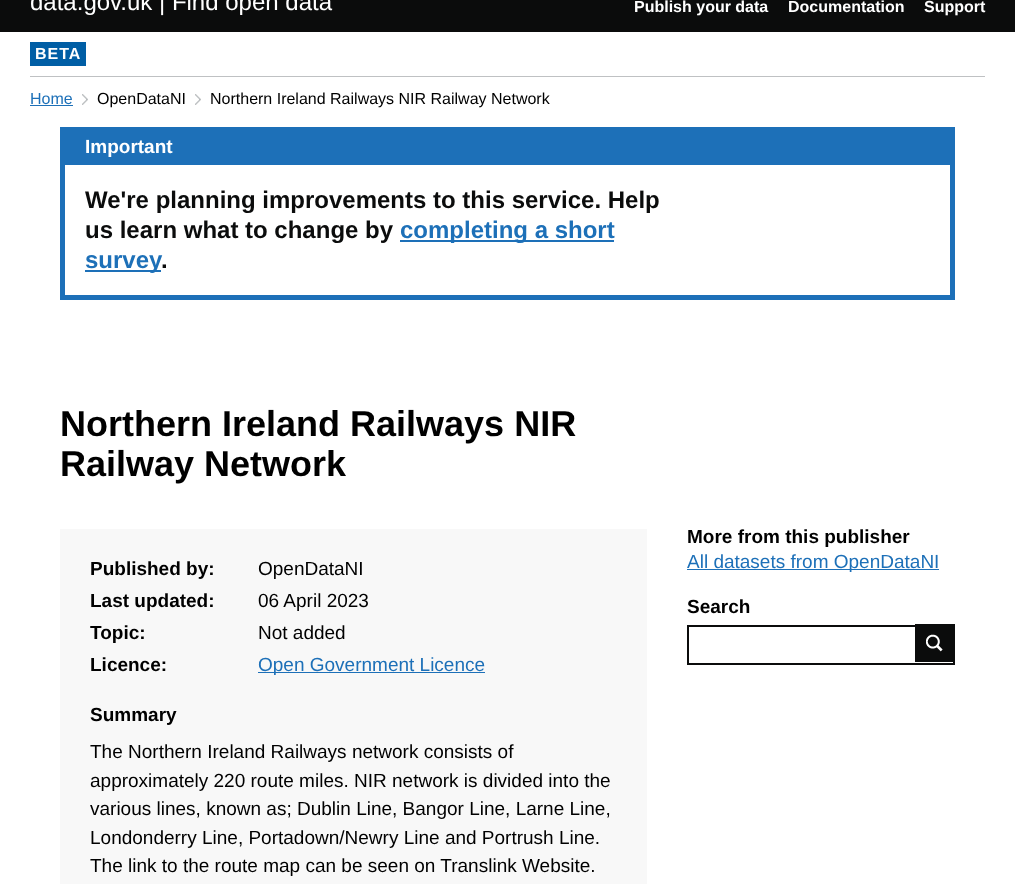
(async () => {
const canvas = document.querySelector("canvas")
canvas.width = 1015
canvas.height = 884
const c = canvas.getContext("2d")
c.miterLimit = 4
c.fontKerning = "normal"
function T(s,x,y){c.fillText(s,x,y)}
function R(x,y,w,h){c.fillRect(x,y,w,h)}
async function I(src,x,y,w,h){const img=new Image();img.src=src;await img.decode();c.drawImage(img,x,y,w,h)}
c.fillStyle="#fff"
R(0,0,1015,884)
c.fillStyle="#0b0c0c"
R(0,0,1015,32)
c.font="24px Liberation Sans"
c.fillStyle="#fff"
T("data.gov.uk | Find open data",30,10)
c.font="bold 16px Liberation Sans"
T("Publish your data",634,12)
T("Documentation",788,12)
T("Support",924,12)
c.fillStyle="#bfc1c3"
R(30,76,955,1)
c.fillStyle="#005ea5"
R(30,42,56,24)
c.letterSpacing="1px"
c.fillStyle="#fff"
T("BETA",35,59)
c.letterSpacing="0px"
c.font="16px Liberation Sans"
c.fillStyle="#1d70b8"
T("Home",30,104)
R(30,105,43,1)
await I("1.png",82,94,6,11)
c.fillStyle="#000"
T("OpenDataNI",97,104)
await I("1.png",195,94,6,11)
T("Northern Ireland Railways NIR Railway Network",210,104)
c.fillStyle="#1d70b8"
R(60,127,895,173)
c.font="bold 19px Liberation Sans"
c.fillStyle="#fff"
T("Important",85,153)
R(65,165,885,130)
c.font="bold 24px Liberation Sans"
c.fillStyle="#0b0c0c"
T("We're planning improvements to this service. Help",85,208)
T("us learn what to change by",85,238)
c.fillStyle="#1d70b8"
R(400,240,214,2)
T("completing a short",400,238)
R(85,270,76,2)
T("survey",85,268)
c.fillStyle="#0b0c0c"
T(".",161,268)
c.font="bold 36px Liberation Sans"
c.fillStyle="#000"
T("Northern Ireland Railways NIR",60,436)
T("Railway Network",60,476)
c.fillStyle="#f8f8f8"
R(60,529,587,355)
c.font="bold 19px Liberation Sans"
c.fillStyle="#000"
T("Published by:",90,575)
c.font="19px Liberation Sans"
T("OpenDataNI",258,575)
c.font="bold 19px Liberation Sans"
T("Last updated:",90,607)
c.font="19px Liberation Sans"
T("06 April 2023",258,607)
c.font="bold 19px Liberation Sans"
T("Topic:",90,639)
c.font="19px Liberation Sans"
T("Not added",258,639)
c.font="bold 19px Liberation Sans"
T("Licence:",90,671)
c.fillStyle="#1d70b8"
R(258,672,227,1)
c.font="19px Liberation Sans"
T("Open Government Licence",258,671)
c.font="bold 19px Liberation Sans"
c.fillStyle="#000"
T("Summary",90,721)
c.font="19px Liberation Sans"
T("The Northern Ireland Railways network consists of",90,758)
T("approximately 220 route miles. NIR network is divided into the",90,787)
T("various lines, known as; Dublin Line, Bangor Line, Larne Line,",90,815)
T("Londonderry Line, Portadown/Newry Line and Portrush Line.",90,844)
T("The link to the route map can be seen on Translink Website.",90,872)
c.font="bold 19px Liberation Sans"
T("More from this publisher",687,543)
c.fillStyle="#1d70b8"
R(687,569,252,1)
c.font="19px Liberation Sans"
T("All datasets from OpenDataNI",687,568)
c.font="bold 19px Liberation Sans"
c.fillStyle="#000"
T("Search",687,613)
c.strokeStyle="#0b0c0c"
c.lineWidth=2
c.strokeRect(688,626,266,38)
c.fillStyle="#0b0c0c"
R(915,624,40,38)
await I("2.png",926,634,17,18)
})()
